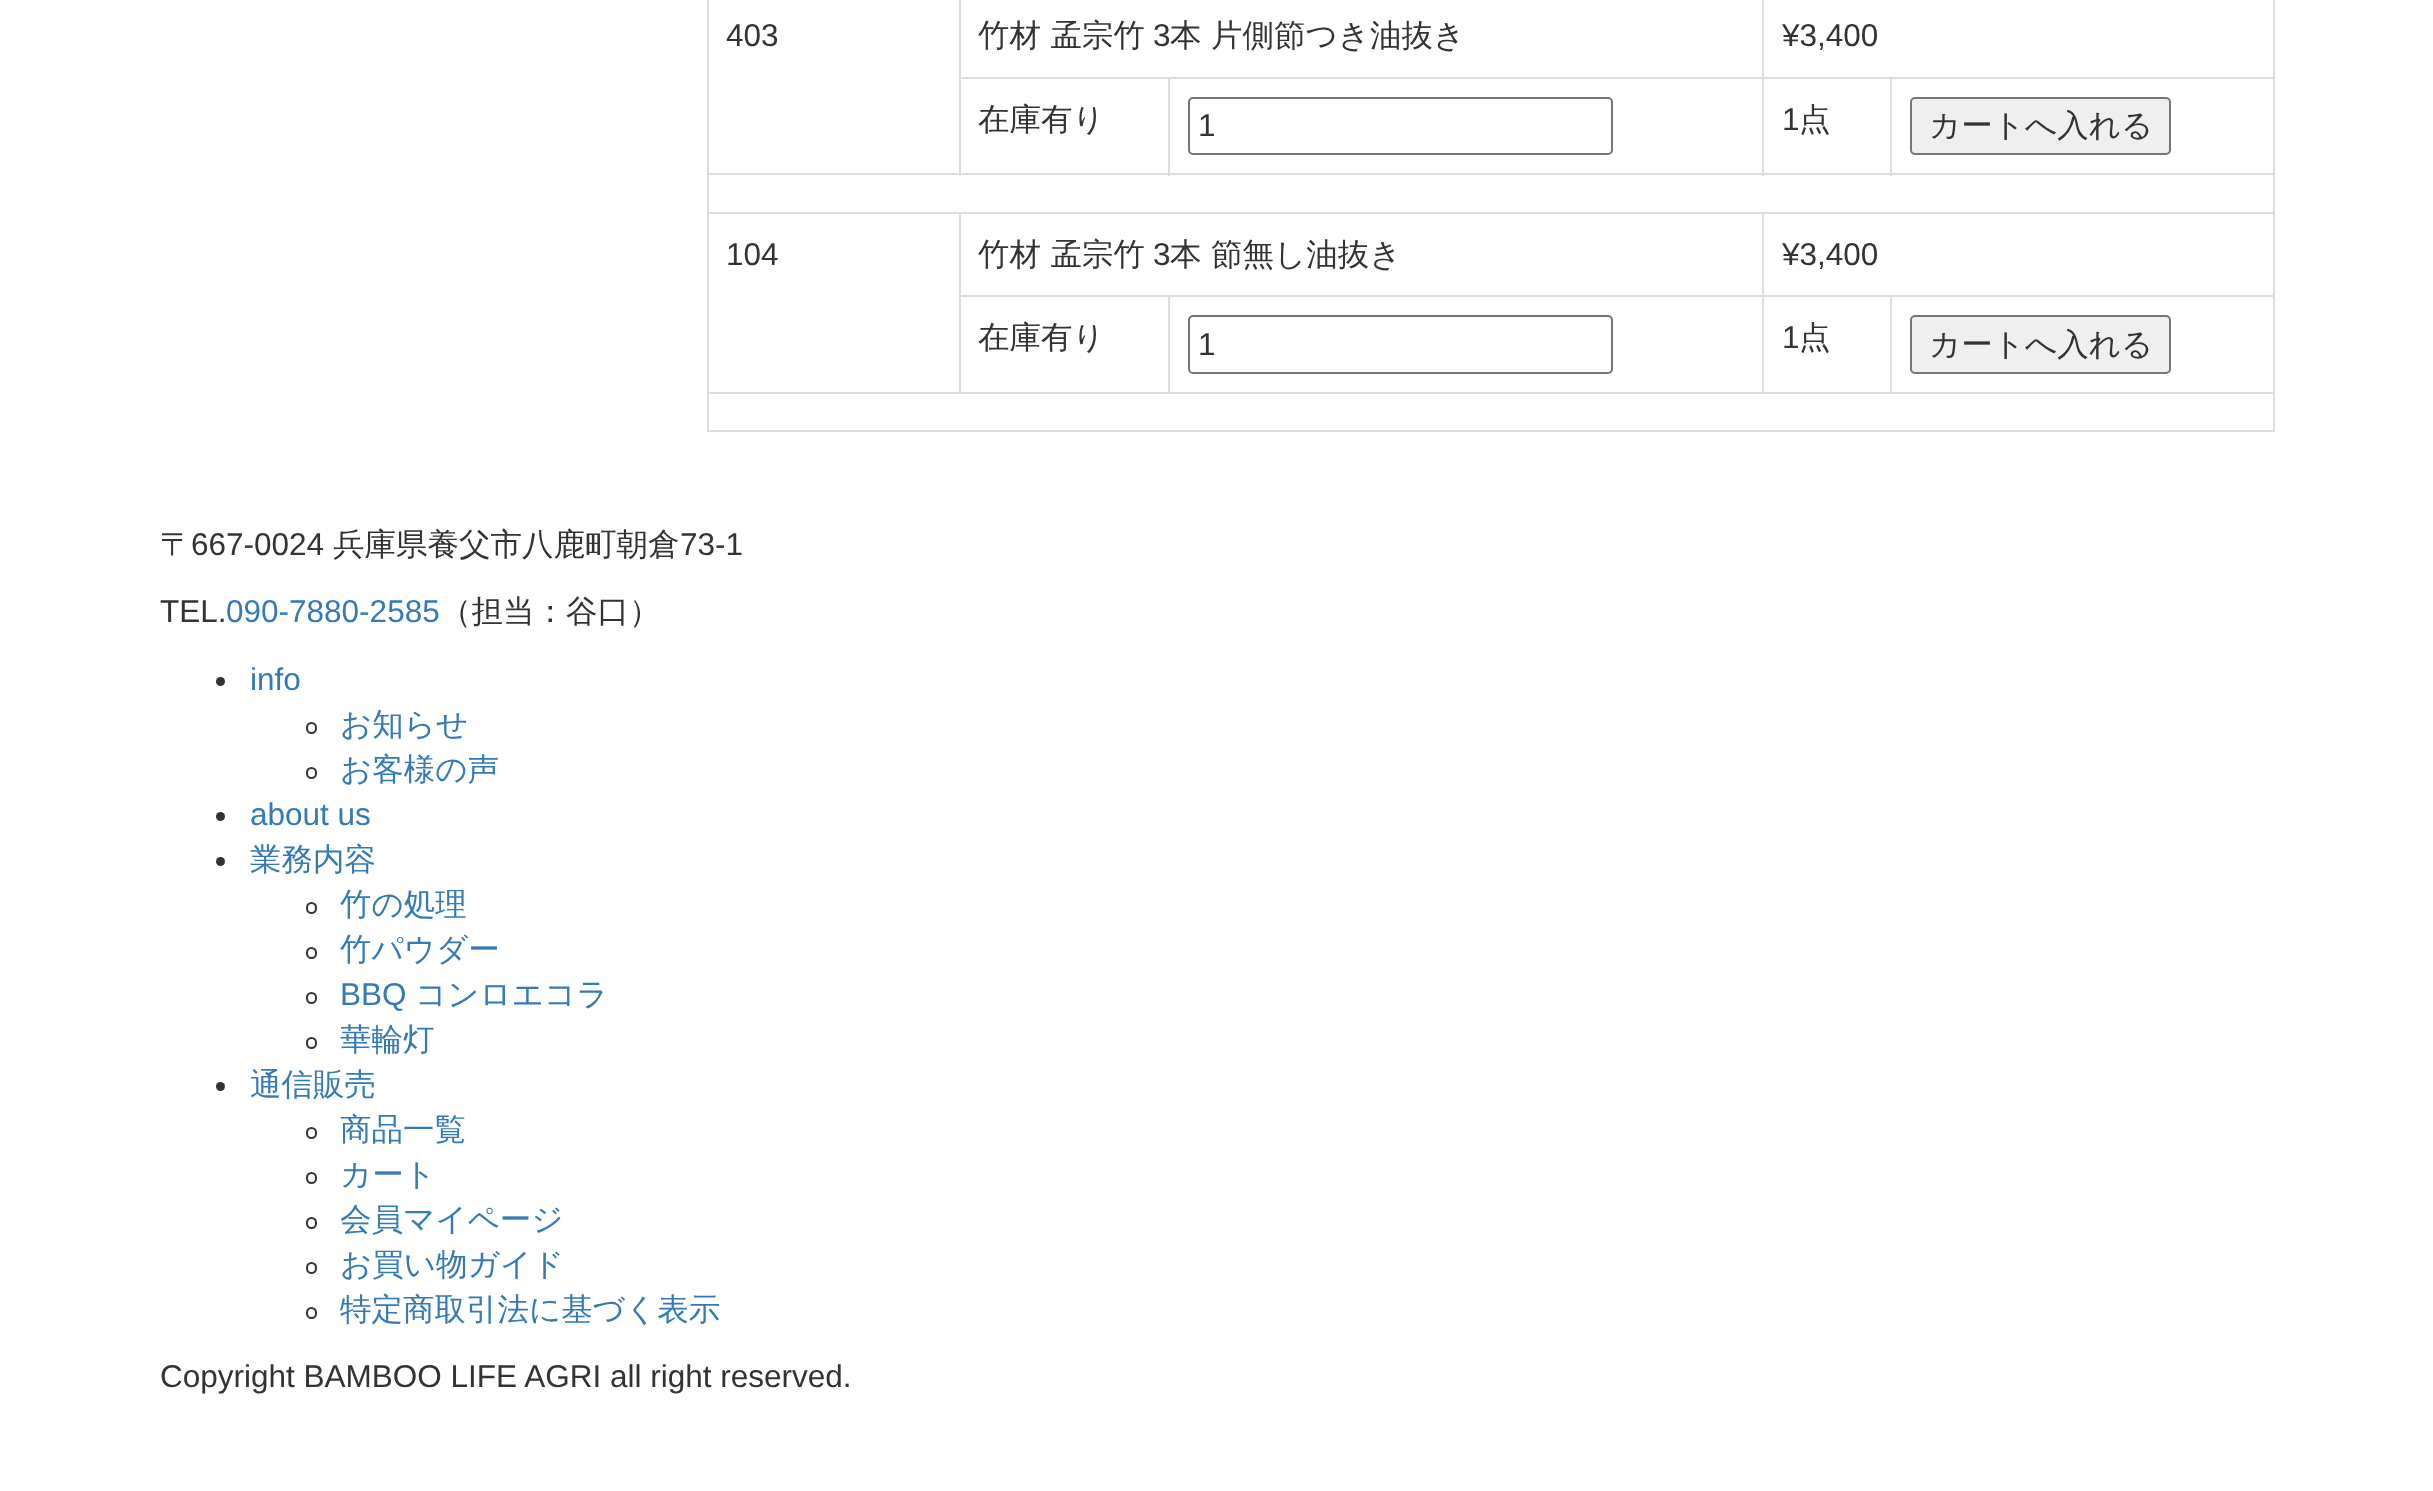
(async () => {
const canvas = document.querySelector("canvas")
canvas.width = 2433
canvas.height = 1491
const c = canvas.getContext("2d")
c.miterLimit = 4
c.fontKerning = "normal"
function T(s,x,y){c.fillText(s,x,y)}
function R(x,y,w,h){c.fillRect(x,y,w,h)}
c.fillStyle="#fff"
R(0,0,2433,1491)
c.fillStyle="#ddd"
R(2273,0,2,432)
R(707,430,1568,2)
R(707,0,2,432)
c.font="31.5px Liberation Sans"
c.fillStyle="#333"
T("403",726,46)
c.font="500 31.5px WenQuanYi Zen Hei"
T("竹材 孟宗竹",978,46)
c.font="31.5px Liberation Sans"
T("3",1153,46)
c.font="500 31.5px WenQuanYi Zen Hei"
T("本 片側節つき油抜き",1170,46)
c.fillStyle="#ddd"
R(1890,77,385,2)
R(707,173,1568,2)
R(1890,77,2,99)
R(1762,77,130,2)
R(1762,77,2,99)
R(1168,77,596,2)
R(1762,0,2,79)
c.font="31.5px Liberation Sans"
c.fillStyle="#333"
T("¥3,400",1782,46)
c.fillStyle="#ddd"
R(1168,77,2,99)
R(959,77,211,2)
R(959,0,2,176)
c.font="500 31.5px WenQuanYi Zen Hei"
c.fillStyle="#333"
T("在庫有り",978,130)
c.beginPath()
c.roundRect(1189,98,423,56,4)
c.strokeStyle="#767676"
c.lineWidth=2
c.stroke()
c.font="31.5px Liberation Sans"
T("1",1198,136)
T("1",1782,130)
c.font="500 31.5px WenQuanYi Zen Hei"
T("点",1799,130)
c.fillStyle="#efefef"
c.beginPath()
c.roundRect(1911,98,259,56,4)
c.fill()
c.stroke()
c.fillStyle="#333"
T("カートへ入れる",1929,136)
c.fillStyle="#ddd"
R(1762,212,513,2)
R(1890,295,385,2)
R(707,392,1568,2)
R(1890,295,2,99)
R(1762,295,130,2)
R(1762,295,2,99)
R(1168,295,596,2)
R(1762,212,2,85)
R(959,212,805,2)
R(1168,295,2,99)
R(959,295,211,2)
R(959,295,2,99)
R(959,212,2,85)
R(707,212,254,2)
c.font="31.5px Liberation Sans"
c.fillStyle="#333"
T("104",726,265)
c.font="500 31.5px WenQuanYi Zen Hei"
T("竹材 孟宗竹",978,265)
c.font="31.5px Liberation Sans"
T("3",1153,265)
c.font="500 31.5px WenQuanYi Zen Hei"
T("本 節無し油抜き",1170,265)
c.font="31.5px Liberation Sans"
T("¥3,400",1782,265)
c.font="500 31.5px WenQuanYi Zen Hei"
T("在庫有り",978,348)
c.beginPath()
c.roundRect(1189,316,423,57,4)
c.stroke()
c.font="31.5px Liberation Sans"
T("1",1198,355)
T("1",1782,348)
c.font="500 31.5px WenQuanYi Zen Hei"
T("点",1799,348)
c.fillStyle="#efefef"
c.beginPath()
c.roundRect(1911,316,259,57,4)
c.fill()
c.stroke()
c.fillStyle="#333"
T("カートへ入れる",1929,355)
T("〒",160,555)
c.font="31.5px Liberation Sans"
T("667-0024",191,555)
c.font="500 31.5px WenQuanYi Zen Hei"
T("兵庫県養父市八鹿町朝倉",333,555)
c.font="31.5px Liberation Sans"
T("73-1",680,555)
T("TEL.",160,622)
c.fillStyle="#337ab7"
T("090-7880-2585",226,622)
c.font="500 31.5px WenQuanYi Zen Hei"
c.fillStyle="#333"
T("（担当：谷口）",440,622)
c.beginPath()
c.arc(220.5,681.5,4.5,0,7)
c.fill()
c.font="31.5px Liberation Sans"
c.fillStyle="#337ab7"
T("info",250,690)
c.beginPath()
c.roundRect(307,723,9,10,4.5)
c.strokeStyle="#333"
c.stroke()
c.font="500 31.5px WenQuanYi Zen Hei"
T("お知らせ",340,735)
c.beginPath()
c.roundRect(307,768,9,10,4.5)
c.stroke()
T("お客様の声",340,780)
c.fillStyle="#333"
c.beginPath()
c.arc(220.5,816.5,4.5,0,7)
c.fill()
c.font="31.5px Liberation Sans"
c.fillStyle="#337ab7"
T("about us",250,825)
c.fillStyle="#333"
c.beginPath()
c.arc(220.5,861.5,4.5,0,7)
c.fill()
c.font="500 31.5px WenQuanYi Zen Hei"
c.fillStyle="#337ab7"
T("業務内容",250,870)
c.beginPath()
c.roundRect(307,903,9,10,4.5)
c.stroke()
T("竹の処理",340,915)
c.beginPath()
c.roundRect(307,948,9,10,4.5)
c.stroke()
T("竹パウダー",340,960)
c.beginPath()
c.roundRect(307,993,9,10,4.5)
c.stroke()
c.font="31.5px Liberation Sans"
T("BBQ",340,1005)
c.font="500 31.5px WenQuanYi Zen Hei"
T("コンロエコラ",415,1005)
c.beginPath()
c.roundRect(307,1038,9,10,4.5)
c.stroke()
T("華輪灯",340,1050)
c.fillStyle="#333"
c.beginPath()
c.arc(220.5,1086.5,4.5,0,7)
c.fill()
c.fillStyle="#337ab7"
T("通信販売",250,1095)
c.beginPath()
c.roundRect(307,1128,9,10,4.5)
c.stroke()
T("商品一覧",340,1140)
c.beginPath()
c.roundRect(307,1173,9,10,4.5)
c.stroke()
T("カート",340,1185)
c.beginPath()
c.roundRect(307,1218,9,10,4.5)
c.stroke()
T("会員マイページ",340,1230)
c.beginPath()
c.roundRect(307,1263,9,10,4.5)
c.stroke()
T("お買い物ガイド",340,1275)
c.beginPath()
c.roundRect(307,1308,9,10,4.5)
c.stroke()
T("特定商取引法に基づく表示",340,1320)
c.font="31.5px Liberation Sans"
c.fillStyle="#333"
T("Copyright BAMBOO LIFE AGRI all right reserved.",160,1387)
})()
